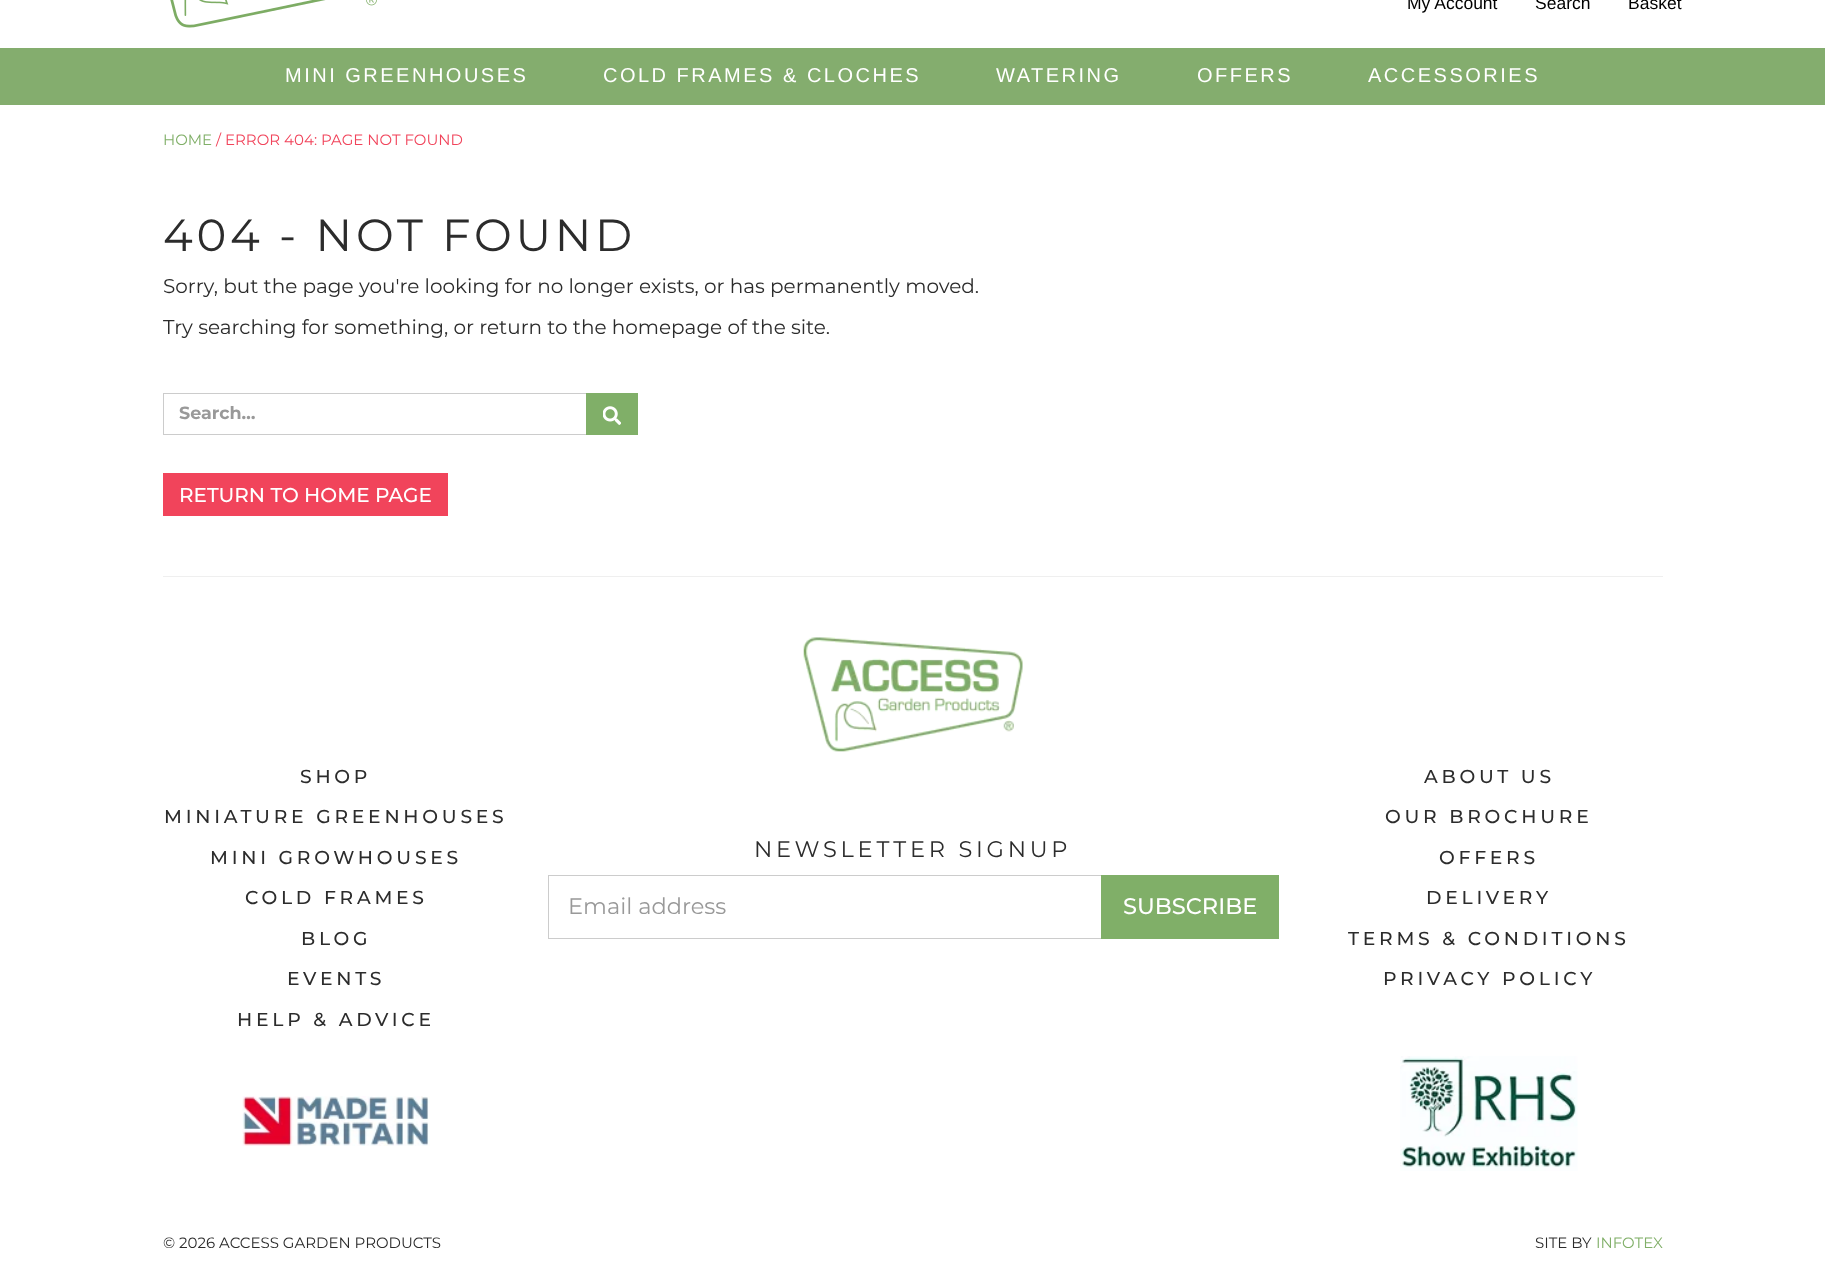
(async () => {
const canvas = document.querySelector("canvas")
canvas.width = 1825
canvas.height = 1266
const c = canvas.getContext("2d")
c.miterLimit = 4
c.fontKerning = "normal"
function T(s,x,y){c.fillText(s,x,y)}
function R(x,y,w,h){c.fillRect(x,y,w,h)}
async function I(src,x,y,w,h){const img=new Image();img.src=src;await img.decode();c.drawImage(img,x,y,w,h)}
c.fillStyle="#fff"
R(0,0,1825,1266)
await I("1.png",170,0,207,28)
c.font="17.5px Liberation Sans"
c.fillStyle="#000"
T("My Account",1407,9)
T("Search",1535,9)
T("Basket",1628,9)
c.fillStyle="#84ad6e"
R(0,48,1825,57)
c.letterSpacing="2.5px"
c.font="20px Liberation Sans"
c.fillStyle="#fff"
T("MINI GREENHOUSES",285,82)
T("COLD FRAMES & CLOCHES",603,82)
T("WATERING",996,82)
T("OFFERS",1197,82)
T("ACCESSORIES",1368,82)
c.letterSpacing="0px"
c.font="15px Montserrat"
c.fillStyle="#80af68"
T("HOME",163,145)
c.fillStyle="#f1445b"
T("/ ERROR 404: PAGE NOT FOUND",216,145)
c.letterSpacing="3.75px"
c.font="45px Montserrat"
c.fillStyle="#2c2c2c"
T("404 - NOT FOUND",163,251)
c.letterSpacing="0px"
c.font="20px Montserrat"
T("Sorry, but the page you're looking for no longer exists, or has permanently moved.",163,293)
T("Try searching for something, or return to the homepage of the site.",163,334)
c.strokeStyle="#ccc"
c.strokeRect(163.5,393.5,424,41)
c.font="bold 17.5px Montserrat"
c.fillStyle="#999"
T("Search…",179,419)
c.fillStyle="#80af68"
R(586,393,52,42)
await I("2.png",603,406,18,19)
c.fillStyle="#f1445b"
R(163,473,285,43)
c.font="500 20px Montserrat"
c.fillStyle="#fff"
T("RETURN TO HOME PAGE",179,502)
c.fillStyle="#efefef"
R(163,576,1500,1)
await I("3.png",803,637,220,115)
c.letterSpacing="3.75px"
c.font="500 18.75px Montserrat"
c.fillStyle="#2c2c2c"
T("SHOP",300,783)
T("MINIATURE GREENHOUSES",164,823)
T("MINI GROWHOUSES",210,864)
T("COLD FRAMES",245,904)
T("BLOG",301,945)
T("EVENTS",287,985)
T("HELP & ADVICE",237,1026)
await I("4.png",242,1096,188,50)
c.font="22.5px Montserrat"
T("NEWSLETTER SIGNUP",754,857)
c.strokeRect(548.5,875.5,554,63)
c.letterSpacing="0px"
c.fillStyle="#999"
T("Email address",568,914)
c.fillStyle="#80af68"
R(1101,875,178,64)
c.font="500 22.5px Montserrat"
c.fillStyle="#fff"
T("SUBSCRIBE",1123,914)
c.letterSpacing="3.75px"
c.font="500 18.75px Montserrat"
c.fillStyle="#2c2c2c"
T("ABOUT US",1424,783)
T("OUR BROCHURE",1385,823)
T("OFFERS",1439,864)
T("DELIVERY",1426,904)
T("TERMS & CONDITIONS",1348,945)
T("PRIVACY POLICY",1383,985)
await I("5.png",1400,1056,178,115)
c.letterSpacing="0px"
c.font="15px Montserrat"
T("© 2026 ACCESS GARDEN PRODUCTS",163,1248)
T("SITE BY",1535,1248)
c.fillStyle="#80af68"
T("INFOTEX",1596,1248)
})()
